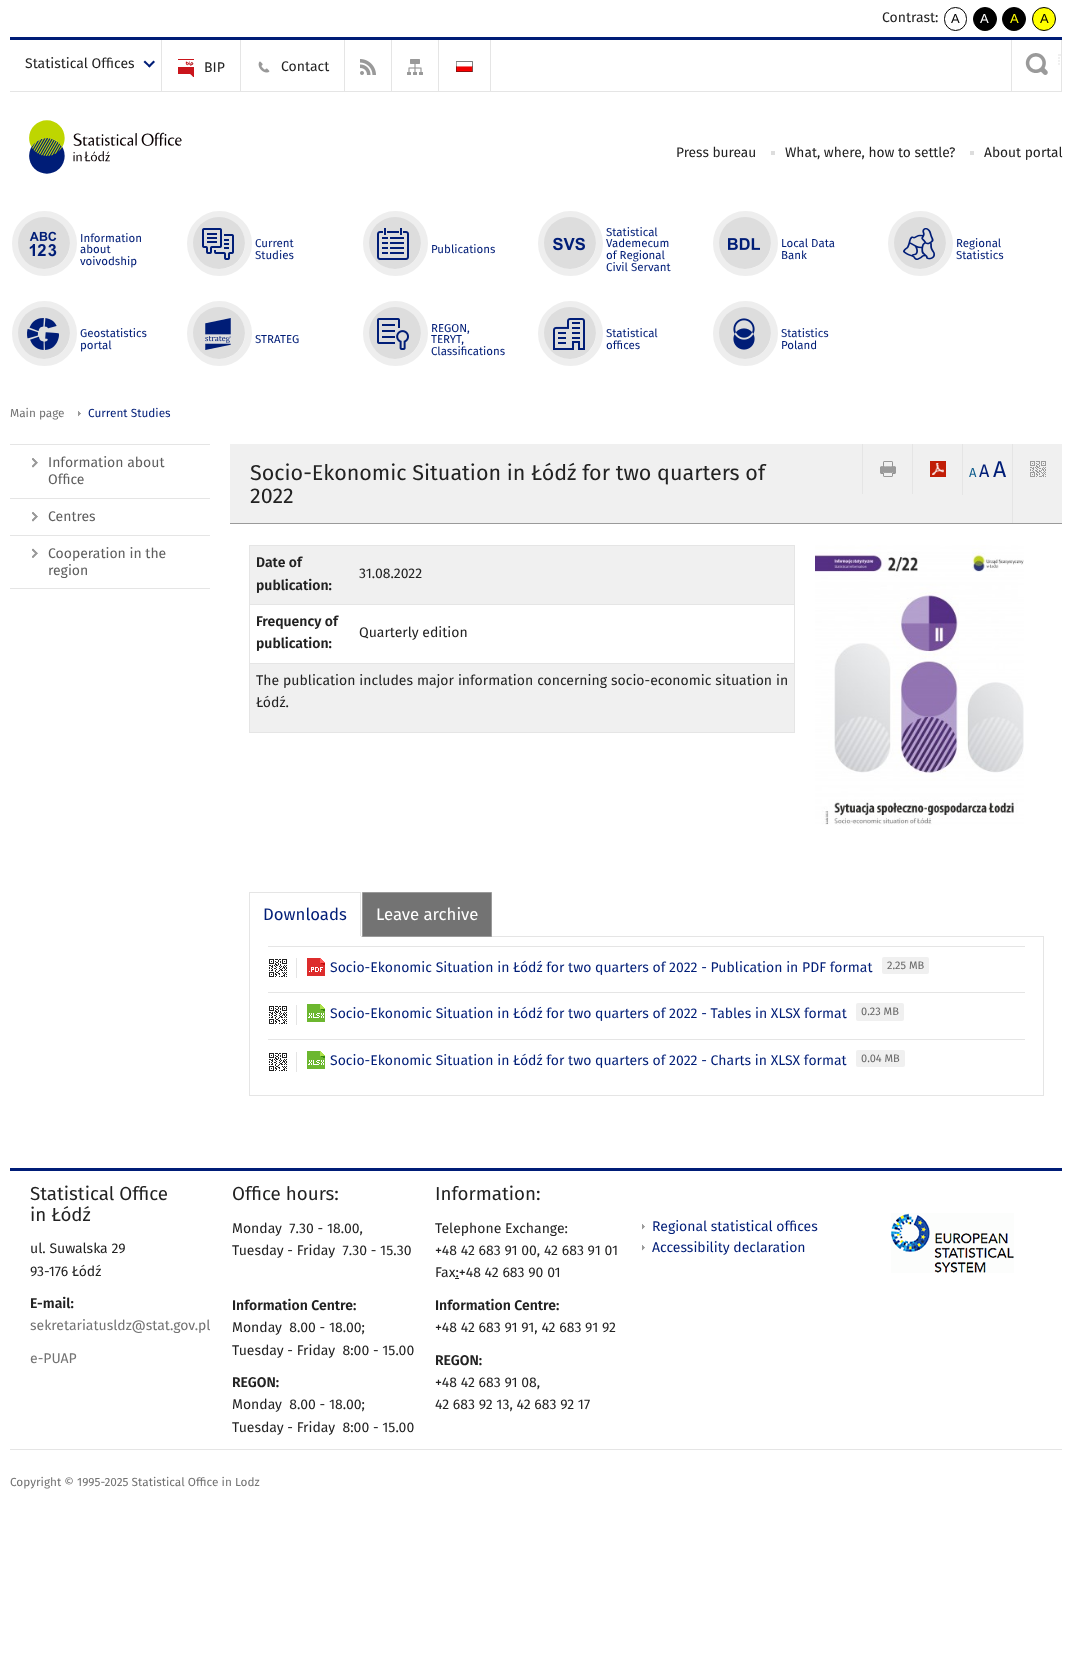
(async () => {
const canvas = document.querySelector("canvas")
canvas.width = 1072
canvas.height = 1670
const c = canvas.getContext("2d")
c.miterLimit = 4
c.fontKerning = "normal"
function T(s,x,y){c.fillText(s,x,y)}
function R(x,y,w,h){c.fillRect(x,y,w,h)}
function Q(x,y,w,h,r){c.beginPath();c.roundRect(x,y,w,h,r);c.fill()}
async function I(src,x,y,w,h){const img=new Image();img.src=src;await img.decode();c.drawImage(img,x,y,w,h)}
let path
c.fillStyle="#fff"
R(0,0,1072,1670)
c.font="14px Fira Sans"
c.fillStyle="#222"
T("Contrast:",882,22)
c.beginPath()
c.roundRect(944.5,7.5,22,23,11)
c.strokeStyle="#000"
c.stroke()
c.font="13px Liberation Sans"
c.fillStyle="#000"
T("A",951,23)
c.beginPath()
c.arc(985,19,11.5,0,7)
c.fill()
c.stroke()
c.fillStyle="#fff"
T("A",980,23)
c.fillStyle="#000"
c.beginPath()
c.arc(1014,19,11.5,0,7)
c.fill()
c.stroke()
c.fillStyle="#ff0"
T("A",1010,23)
c.beginPath()
c.arc(1044,19,11.5,0,7)
c.fill()
c.stroke()
c.fillStyle="#000"
T("A",1040,23)
c.fillStyle="#001d77"
R(10,37,1052,3)
c.fillStyle="#e5e5e5"
R(10,91,1052,1)
R(161,40,1,51)
c.font="14px Fira Sans"
c.fillStyle="#222"
T("Statistical Offices",25,68)
c.fillStyle="#001d77"
path = new Path2D("M153.5 60.5l1.5 1.5l-5.5 5.5l-1.5-1.5z")
c.fill(path)
path = new Path2D("M145 60.5l5.5 5.5l-1 1.5l-6-5.5z")
c.fill(path)
c.fillStyle="#e5e5e5"
R(240,40,1,51)
await I("1.png",178,59,16,18)
c.fillStyle="#222"
T("BIP",204,72)
c.fillStyle="#e5e5e5"
R(344,40,1,51)
await I("2.png",258,61,12,12)
c.fillStyle="#222"
T("Contact",281,71)
c.fillStyle="#e5e5e5"
R(391,40,1,51)
await I("3.png",360,59,16,16)
R(438,40,1,51)
await I("4.png",407,59,16,16)
R(490,40,1,51)
await I("5.png",456,61,17,11)
await I("6.png",1025,53,36,22)
R(1061,40,1,51)
R(1011,40,1,51)
await I("7.png",29,120,153,54)
c.font="13.75px Fira Sans"
c.fillStyle="#222"
T("Press bureau",676,157)
T("What, where, how to settle?",785,157)
c.fillStyle="#ddd"
R(771,151,4,4)
c.fillStyle="#222"
T("About portal",984,157)
c.fillStyle="#ddd"
R(970,151,4,4)
c.beginPath()
c.arc(44.5,243.5,29,0,7)
c.strokeStyle="#eee"
c.lineWidth=7
c.stroke()
c.beginPath()
c.arc(44,243,26,0,7)
c.fill()
await I("8.png",29,231,28,26)
c.font="11.5px Fira Sans"
c.fillStyle="#001d77"
T("Information",80,242)
T("about",80,253)
T("voivodship",80,265)
c.beginPath()
c.arc(219.5,243.5,29,0,7)
c.stroke()
c.fillStyle="#ddd"
c.beginPath()
c.arc(219,243,26,0,7)
c.fill()
await I("9.png",202,228,32,32)
c.fillStyle="#001d77"
T("Current",255,247)
T("Studies",255,259)
c.beginPath()
c.arc(395.5,243.5,29,0,7)
c.stroke()
c.fillStyle="#ddd"
c.beginPath()
c.arc(395,243,26,0,7)
c.fill()
await I("10.png",377,228,32,32)
c.fillStyle="#001d77"
T("Publications",431,253)
c.beginPath()
c.arc(570.5,243.5,29,0,7)
c.stroke()
c.fillStyle="#ddd"
c.beginPath()
c.arc(570,243,26,0,7)
c.fill()
await I("11.png",553,237,32,14)
c.fillStyle="#001d77"
T("Statistical",606,236)
T("Vademecum",606,247)
T("of Regional",606,259)
T("Civil Servant",606,271)
c.beginPath()
c.arc(745.5,243.5,29,0,7)
c.stroke()
c.fillStyle="#ddd"
c.beginPath()
c.arc(745,243,26,0,7)
c.fill()
await I("12.png",728,238,32,12)
c.fillStyle="#001d77"
T("Local Data",781,247)
T("Bank",781,259)
c.beginPath()
c.arc(920.5,243.5,29,0,7)
c.stroke()
c.fillStyle="#ddd"
c.beginPath()
c.arc(920,243,26,0,7)
c.fill()
await I("13.png",903,228,32,32)
c.fillStyle="#001d77"
T("Regional",956,247)
T("Statistics",956,259)
c.beginPath()
c.arc(44.5,333.5,29,0,7)
c.stroke()
c.fillStyle="#ddd"
c.beginPath()
c.arc(44,333,26,0,7)
c.fill()
await I("14.png",27,318,32,32)
c.fillStyle="#001d77"
T("Geostatistics",80,337)
T("portal",80,349)
c.beginPath()
c.arc(219.5,333.5,29,0,7)
c.stroke()
c.fillStyle="#ddd"
c.beginPath()
c.arc(219,333,26,0,7)
c.fill()
await I("15.png",205,318,26,32)
c.fillStyle="#001d77"
T("STRATEG",255,343)
c.beginPath()
c.arc(395.5,333.5,29,0,7)
c.stroke()
c.fillStyle="#ddd"
c.beginPath()
c.arc(395,333,26,0,7)
c.fill()
await I("16.png",377,318,32,32)
c.fillStyle="#001d77"
T("REGON,",431,332)
T("TERYT,",431,343)
T("Classifications",431,355)
c.beginPath()
c.arc(570.5,333.5,29,0,7)
c.stroke()
c.fillStyle="#ddd"
c.beginPath()
c.arc(570,333,26,0,7)
c.fill()
await I("17.png",553,318,32,32)
c.fillStyle="#001d77"
T("Statistical",606,337)
T("offices",606,349)
c.beginPath()
c.arc(745.5,333.5,29,0,7)
c.stroke()
c.fillStyle="#ddd"
c.beginPath()
c.arc(745,333,26,0,7)
c.fill()
await I("18.png",733,318,22,32)
c.fillStyle="#001d77"
T("Statistics",781,337)
T("Poland",781,349)
c.font="11.8px Fira Sans"
c.fillStyle="#737373"
T("Main page",10,417)
await I("19.png",78,411,3,6)
c.fillStyle="#001d77"
T("Current Studies",88,417)
await I("20.png",32,458,6,10)
c.fillStyle="#e5e5e5"
R(10,444,200,1)
R(10,498,200,1)
c.font="14px Fira Sans"
c.fillStyle="#5e5e5e"
T("Information about",48,467)
T("Office",48,484)
await I("21.png",32,512,6,10)
c.fillStyle="#e5e5e5"
R(10,535,200,1)
c.fillStyle="#5e5e5e"
T("Centres",48,521)
await I("22.png",32,548,6,10)
c.fillStyle="#e5e5e5"
R(10,588,200,1)
c.fillStyle="#5e5e5e"
T("Cooperation in the",48,558)
T("region",48,575)
c.fillStyle="#f0f0f0"
R(230,444,832,79)
c.fillStyle="#9a9a9a"
R(230,523,832,1)
c.font="21.5px Fira Sans"
c.fillStyle="#222"
T("Socio-Ekonomic Situation in Łódź for two quarters of",250,480)
T("2022",250,503)
c.fillStyle="#e5e5e5"
R(862,444,1,50)
await I("23.png",880,461,16,16)
R(912,444,1,50)
await I("24.png",930,461,16,16)
R(962,444,1,51)
c.font="13px Fira Sans"
c.fillStyle="#0f5c8d"
T("A",969,477)
c.font="18px Fira Sans"
c.fillStyle="#001d77"
T("A",979,477)
c.font="23px Fira Sans"
T("A",993,477)
c.fillStyle="#e5e5e5"
R(1012,444,1,79)
await I("25.png",1030,461,16,16)
c.fillStyle="#f0f0f0"
R(250,546,544,58)
c.fillStyle="#e5e5e5"
R(249,545,546,1)
R(249,604,546,1)
R(249,663,546,1)
R(794,663,1,70)
R(249,732,546,1)
R(249,663,1,70)
R(249,604,1,60)
R(249,545,1,60)
c.font="600 14px Fira Sans"
c.fillStyle="#222"
T("Date of",256,567)
T("publication:",256,590)
c.fillStyle="#e5e5e5"
R(794,604,1,60)
R(794,545,1,60)
c.font="14px Fira Sans"
c.fillStyle="#222"
T("31.08.2022",359,578)
c.font="600 14px Fira Sans"
T("Frequency of",256,626)
T("publication:",256,648)
c.font="14px Fira Sans"
T("Quarterly edition",359,637)
c.fillStyle="#f0f0f0"
R(250,664,544,68)
c.wordSpacing="0.25px"
c.fillStyle="#222"
T("The publication includes major information concerning socio-economic situation in",256,685)
c.wordSpacing="0px"
T("Łódź.",256,707)
await I("26.png",815,545,209,280)
c.fillStyle="#e5e5e5"
R(249,892,112,1)
c.strokeStyle="#e5e5e5"
c.lineWidth=1
c.strokeRect(249.5,936.5,794,159)
R(360,892,1,45)
c.fillStyle="#fff"
R(249,936,112,1)
c.fillStyle="#e5e5e5"
R(249,892,1,45)
c.font="16.75px Fira Sans"
c.fillStyle="#001d77"
T("Downloads",263,920)
c.fillStyle="#737373"
c.beginPath()
c.rect(362.5,892.5,129,44)
c.fill()
c.strokeStyle="#9a9a9a"
c.stroke()
c.fillStyle="#fff"
T("Leave archive",376,920)
c.fillStyle="#e5e5e5"
R(268,946,757,1)
R(296,958,1,20)
await I("27.png",269,959,18,18)
await I("28.png",307,958,18,18)
c.font="14px Fira Sans"
c.fillStyle="#001d77"
T("Socio-Ekonomic Situation in Łódź for two quarters of 2022 - Publication in PDF format",330,972)
c.fillStyle="#f0f0f0"
Q(882,957,47,17,2)
c.font="11px Fira Sans"
c.fillStyle="#666"
T("2.25 MB",887,969)
c.fillStyle="#e5e5e5"
R(268,992,757,1)
R(296,1005,1,20)
await I("27.png",269,1006,18,18)
await I("29.png",307,1004,18,18)
c.font="14px Fira Sans"
c.fillStyle="#001d77"
T("Socio-Ekonomic Situation in Łódź for two quarters of 2022 - Tables in XLSX format",330,1018)
c.fillStyle="#f0f0f0"
Q(856,1003,48,18,2)
c.font="11px Fira Sans"
c.fillStyle="#666"
T("0.23 MB",861,1015)
c.fillStyle="#e5e5e5"
R(268,1039,757,1)
R(296,1052,1,20)
await I("27.png",269,1053,18,18)
await I("29.png",307,1051,18,18)
c.font="14px Fira Sans"
c.fillStyle="#001d77"
T("Socio-Ekonomic Situation in Łódź for two quarters of 2022 - Charts in XLSX format",330,1065)
c.fillStyle="#f0f0f0"
Q(856,1050,49,17,2)
c.font="11px Fira Sans"
c.fillStyle="#666"
T("0.04 MB",861,1062)
c.fillStyle="#001d77"
R(10,1168,1052,3)
c.fillStyle="#e5e5e5"
R(10,1449,1052,1)
c.font="18.75px Fira Sans"
c.fillStyle="#222"
T("Statistical Office",30,1200)
T("in Łódź",30,1221)
c.font="14px Fira Sans"
T("ul. Suwalska 29",30,1253)
T("93-176 Łódź",30,1276)
c.font="600 14px Fira Sans"
T("E-mail:",30,1308)
c.font="14px Fira Sans"
c.fillStyle="#737373"
T("sekretariatusldz@stat.gov.pl",30,1330)
T("e-PUAP",30,1363)
c.font="18.75px Fira Sans"
c.fillStyle="#222"
T("Office hours:",232,1200)
c.font="14px Fira Sans"
T("Monday  7.30 - 18.00,",232,1233)
T("Tuesday - Friday  7.30 - 15.30",232,1255)
c.font="600 14px Fira Sans"
T("Information Centre:",232,1310)
c.font="14px Fira Sans"
T("Monday  8.00 - 18.00;",232,1332)
T("Tuesday - Friday  8:00 - 15.00",232,1355)
c.font="600 14px Fira Sans"
T("REGON:",232,1387)
c.font="14px Fira Sans"
T("Monday  8.00 - 18.00;",232,1409)
T("Tuesday - Friday  8:00 - 15.00",232,1432)
c.font="18.75px Fira Sans"
T("Information:",435,1200)
c.font="14px Fira Sans"
T("Telephone Exchange:",435,1233)
T("+48 42 683 91 00, 42 683 91 01",435,1255)
T("Fax:+48 42 683 90 01",435,1277)
R(455,1278,4,1)
c.font="600 14px Fira Sans"
T("Information Centre:",435,1310)
c.font="14px Fira Sans"
T("+48 42 683 91 91, 42 683 91 92",435,1332)
c.font="600 14px Fira Sans"
T("REGON:",435,1365)
c.font="14px Fira Sans"
T("+48 42 683 91 08,",435,1387)
T("42 683 92 13, 42 683 92 17",435,1409)
await I("30.png",642,1224,3,6)
c.fillStyle="#001d77"
T("Regional statistical offices",652,1231)
await I("30.png",642,1245,3,6)
T("Accessibility declaration",652,1252)
await I("31.png",891,1213,123,60)
c.font="11.8px Fira Sans"
c.fillStyle="#737373"
T("Copyright © 1995-2025 Statistical Office in Lodz",10,1486)
})()
